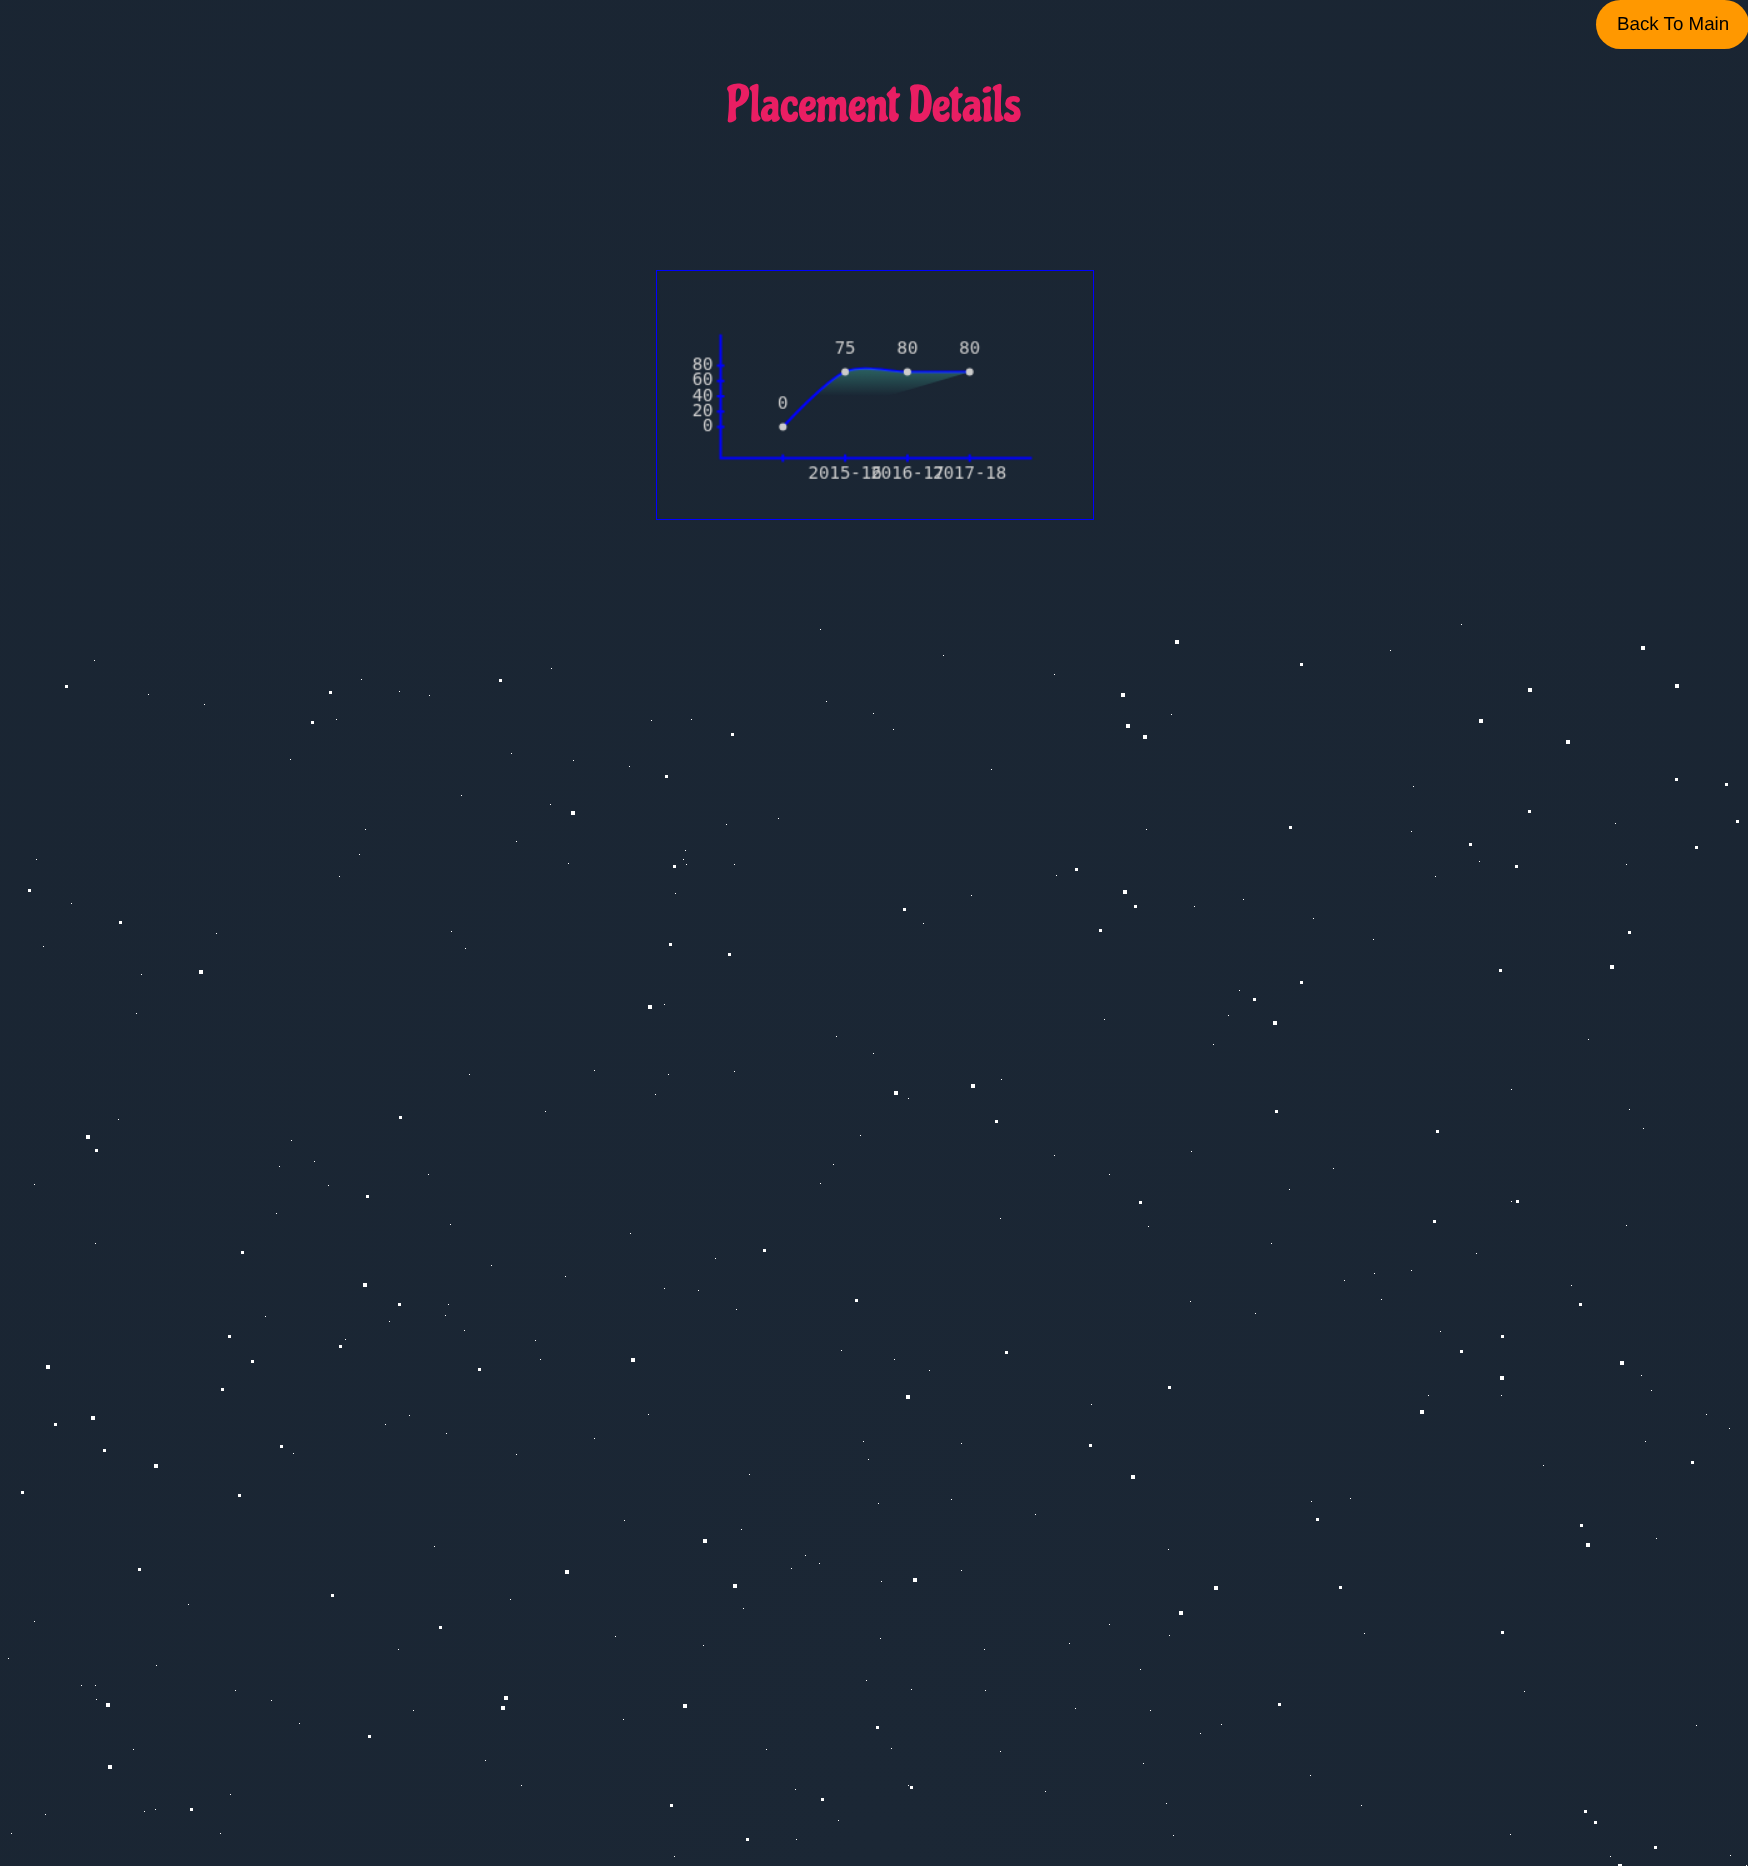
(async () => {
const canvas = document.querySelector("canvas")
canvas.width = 1748
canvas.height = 1866
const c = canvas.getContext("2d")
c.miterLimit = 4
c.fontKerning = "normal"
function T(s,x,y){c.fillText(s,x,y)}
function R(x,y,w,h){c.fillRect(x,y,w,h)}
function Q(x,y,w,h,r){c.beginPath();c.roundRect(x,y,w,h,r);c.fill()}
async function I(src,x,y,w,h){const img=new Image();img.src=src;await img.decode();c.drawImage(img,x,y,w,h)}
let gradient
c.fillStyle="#fff"
R(0,0,1748,1866)
gradient = c.createRadialGradient(874,874.25,0,874,874.25,18548)
gradient.addColorStop(0,"#1b2735")
gradient.addColorStop(1,"#090a0f")
c.fillStyle = gradient
c.beginPath()
c.rect(0,0,1748,1866)
c.save()
c.clip()
c.scale(1,39589 / 18548)
c.fillRect(0,0,1748,875)
c.restore()
c.fillStyle="#ff9800"
Q(1596,0,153,49,24.5)
c.font="18.75px Liberation Sans"
c.fillStyle="#000"
T("Back To Main",1617,30)
c.font="50px Chicle"
c.fillStyle="#e91e63"
T("Placement Details",727,121)
c.strokeStyle="#00f"
c.strokeRect(656.5,270.5,437,249)
await I("1.png",692,333,341,146)
c.fillStyle="#fff"
R(1413,786,1,1)
R(1169,1635,1,1)
R(894,1359,1,1)
R(516,1454,1,1)
R(1243,899,1,1)
R(1524,1691,1,1)
R(1056,875,1,1)
R(668,1074,1,1)
R(36,859,1,1)
R(1035,1514,1,1)
R(664,1288,1,1)
R(399,691,1,1)
R(675,893,1,1)
R(819,1563,1,1)
R(1510,1834,1,1)
R(873,1053,1,1)
R(445,1315,1,1)
R(741,1529,1,1)
R(339,876,1,1)
R(81,1685,1,1)
R(594,1438,1,1)
R(94,660,1,1)
R(1374,1273,1,1)
R(715,1258,1,1)
R(573,760,1,1)
R(1435,876,1,1)
R(1390,650,1,1)
R(1729,1428,1,1)
R(820,629,1,1)
R(96,1699,1,1)
R(1311,1501,1,1)
R(148,694,1,1)
R(521,1785,1,1)
R(878,1503,1,1)
R(820,1183,1,1)
R(1221,1724,1,1)
R(1000,1751,1,1)
R(434,1546,1,1)
R(873,713,1,1)
R(359,854,1,1)
R(1173,1835,1,1)
R(279,1166,1,1)
R(485,1760,1,1)
R(686,864,1,1)
R(961,1443,1,1)
R(345,1339,1,1)
R(1213,1044,1,1)
R(623,1719,1,1)
R(1476,1253,1,1)
R(1643,1128,1,1)
R(1629,1109,1,1)
R(630,1233,1,1)
R(1696,1725,1,1)
R(1168,1549,1,1)
R(448,1304,1,1)
R(230,1794,1,1)
R(118,1119,1,1)
R(34,1621,1,1)
R(1428,1395,1,1)
R(413,1710,1,1)
R(1146,829,1,1)
R(1656,1538,1,1)
R(216,933,1,1)
R(550,804,1,1)
R(293,1453,1,1)
R(95,1243,1,1)
R(1344,1280,1,1)
R(361,679,1,1)
R(703,1645,1,1)
R(893,729,1,1)
R(1091,1404,1,1)
R(540,1359,1,1)
R(836,1036,1,1)
R(891,1748,1,1)
R(749,1474,1,1)
R(8,1658,1,1)
R(428,1174,1,1)
R(1140,1669,1,1)
R(863,1441,1,1)
R(860,1135,1,1)
R(1271,1243,1,1)
R(450,1224,1,1)
R(291,1140,1,1)
R(469,1074,1,1)
R(1166,1803,1,1)
R(451,931,1,1)
R(1361,1805,1,1)
R(1143,1763,1,1)
R(664,1004,1,1)
R(961,1570,1,1)
R(791,1568,1,1)
R(880,1638,1,1)
R(141,974,1,1)
R(464,1330,1,1)
R(629,766,1,1)
R(43,946,1,1)
R(1411,1270,1,1)
R(188,1604,1,1)
R(1001,1079,1,1)
R(328,1185,1,1)
R(491,1265,1,1)
R(551,668,1,1)
R(568,863,1,1)
R(1511,1201,1,1)
R(1109,1624,1,1)
R(984,1649,1,1)
R(615,1636,1,1)
R(726,824,1,1)
R(1190,1301,1,1)
R(516,841,1,1)
R(1440,1331,1,1)
R(1148,1226,1,1)
R(385,1424,1,1)
R(1000,1218,1,1)
R(648,1414,1,1)
R(1200,1733,1,1)
R(1350,1498,1,1)
R(1150,1710,1,1)
R(1109,1174,1,1)
R(1171,714,1,1)
R(1104,1019,1,1)
R(429,695,1,1)
R(1069,1643,1,1)
R(45,1814,1,1)
R(133,1749,1,1)
R(204,704,1,1)
R(881,1581,1,1)
R(1588,1039,1,1)
R(1364,1633,1,1)
R(929,1370,1,1)
R(276,1213,1,1)
R(1610,1856,1,1)
R(683,859,1,1)
R(1615,823,1,1)
R(805,1555,1,1)
R(365,829,1,1)
R(389,1321,1,1)
R(1239,990,1,1)
R(144,1811,1,1)
R(314,1161,1,1)
R(1626,1225,1,1)
R(299,1723,1,1)
R(778,818,1,1)
R(1373,939,1,1)
R(465,948,1,1)
R(1054,1155,1,1)
R(1641,1375,1,1)
R(34,1184,1,1)
R(685,850,1,1)
R(698,1290,1,1)
R(655,1094,1,1)
R(795,1789,1,1)
R(511,753,1,1)
R(1746,1865,1,1)
R(985,1690,1,1)
R(691,719,1,1)
R(265,1316,1,1)
R(1645,1441,1,1)
R(336,719,1,1)
R(545,1111,1,1)
R(1054,674,1,1)
R(1706,1414,1,1)
R(1501,1395,1,1)
R(1228,1015,1,1)
R(1511,1089,1,1)
R(1194,906,1,1)
R(734,1071,1,1)
R(1045,1791,1,1)
R(766,1749,1,1)
R(1730,1855,1,1)
R(446,1433,1,1)
R(1313,918,1,1)
R(1381,1299,1,1)
R(71,903,1,1)
R(409,1415,1,1)
R(1075,1708,1,1)
R(1191,1151,1,1)
R(461,795,1,1)
R(908,1785,1,1)
R(1461,624,1,1)
R(838,1820,1,1)
R(908,1098,1,1)
R(235,1690,1,1)
R(841,1350,1,1)
R(923,923,1,1)
R(290,759,1,1)
R(156,1665,1,1)
R(868,1459,1,1)
R(991,769,1,1)
R(1310,1775,1,1)
R(674,1856,1,1)
R(271,1700,1,1)
R(510,1599,1,1)
R(220,1833,1,1)
R(943,655,1,1)
R(155,1809,1,1)
R(398,1649,1,1)
R(594,1070,1,1)
R(734,864,1,1)
R(136,1013,1,1)
R(736,1309,1,1)
R(911,1689,1,1)
R(535,1340,1,1)
R(743,1608,1,1)
R(971,895,1,1)
R(1479,861,1,1)
R(951,1499,1,1)
R(1543,1465,1,1)
R(1411,831,1,1)
R(833,1164,1,1)
R(1333,1168,1,1)
R(1571,1285,1,1)
R(1651,1390,1,1)
R(651,720,1,1)
R(1626,864,1,1)
R(1255,1313,1,1)
R(866,1680,1,1)
R(796,1839,1,1)
R(624,1520,1,1)
R(565,1276,1,1)
R(95,1685,1,1)
R(1289,1189,1,1)
R(11,1833,1,1)
R(826,701,1,1)
R(1123,890,4,4)
R(1618,1864,4,2)
R(894,1091,4,4)
R(703,1539,4,4)
R(1528,688,4,4)
R(1566,740,4,4)
R(1179,1611,4,4)
R(91,1416,4,4)
R(1500,1376,4,4)
R(46,1365,4,4)
R(199,970,4,4)
R(913,1578,4,4)
R(154,1464,4,4)
R(1131,1475,4,4)
R(571,811,4,4)
R(733,1584,4,4)
R(1121,693,4,4)
R(1620,1361,4,4)
R(106,1703,4,4)
R(108,1765,4,4)
R(501,1706,4,4)
R(1641,646,4,4)
R(1586,1543,4,4)
R(1420,1410,4,4)
R(906,1395,4,4)
R(1214,1586,4,4)
R(683,1704,4,4)
R(565,1570,4,4)
R(1675,684,4,4)
R(971,1084,4,4)
R(1479,719,4,4)
R(631,1358,4,4)
R(1143,735,4,4)
R(1610,965,4,4)
R(1126,724,4,4)
R(86,1135,4,4)
R(1175,640,4,4)
R(648,1005,4,4)
R(1273,1021,4,4)
R(504,1696,4,4)
R(363,1283,4,4)
R(1594,1821,3,3)
R(669,943,3,3)
R(399,1116,3,3)
R(138,1568,3,3)
R(251,1360,3,3)
R(1528,810,3,3)
R(1695,846,3,3)
R(673,865,3,3)
R(368,1735,3,3)
R(1089,1444,3,3)
R(1691,1461,3,3)
R(1075,868,3,3)
R(821,1798,3,3)
R(731,733,3,3)
R(478,1368,3,3)
R(103,1449,3,3)
R(1516,1200,3,3)
R(1134,905,3,3)
R(228,1335,3,3)
R(1675,778,3,3)
R(1433,1220,3,3)
R(329,691,3,3)
R(1339,1586,3,3)
R(1654,1846,3,3)
R(499,679,3,3)
R(1460,1350,3,3)
R(1725,783,3,3)
R(311,721,3,3)
R(670,1804,3,3)
R(241,1251,3,3)
R(1501,1631,3,3)
R(1436,1130,3,3)
R(21,1491,3,3)
R(746,1838,3,3)
R(665,775,3,3)
R(1579,1303,3,3)
R(1499,969,3,3)
R(1469,843,3,3)
R(1515,865,3,3)
R(331,1594,3,3)
R(855,1299,3,3)
R(1501,1335,3,3)
R(398,1303,3,3)
R(1168,1386,3,3)
R(1736,820,3,3)
R(190,1808,3,3)
R(28,889,3,3)
R(1300,981,3,3)
R(339,1345,3,3)
R(1005,1351,3,3)
R(1289,826,3,3)
R(1278,1703,3,3)
R(910,1786,3,3)
R(54,1423,3,3)
R(763,1249,3,3)
R(1628,931,3,3)
R(119,921,3,3)
R(995,1120,3,3)
R(221,1388,3,3)
R(1275,1110,3,3)
R(95,1149,3,3)
R(728,953,3,3)
R(1099,929,3,3)
R(439,1626,3,3)
R(903,908,3,3)
R(1253,998,3,3)
R(1584,1810,3,3)
R(280,1445,3,3)
R(65,685,3,3)
R(876,1726,3,3)
R(1139,1201,3,3)
R(1300,663,3,3)
R(1580,1524,3,3)
R(1316,1518,3,3)
R(238,1494,3,3)
R(366,1195,3,3)
})()
